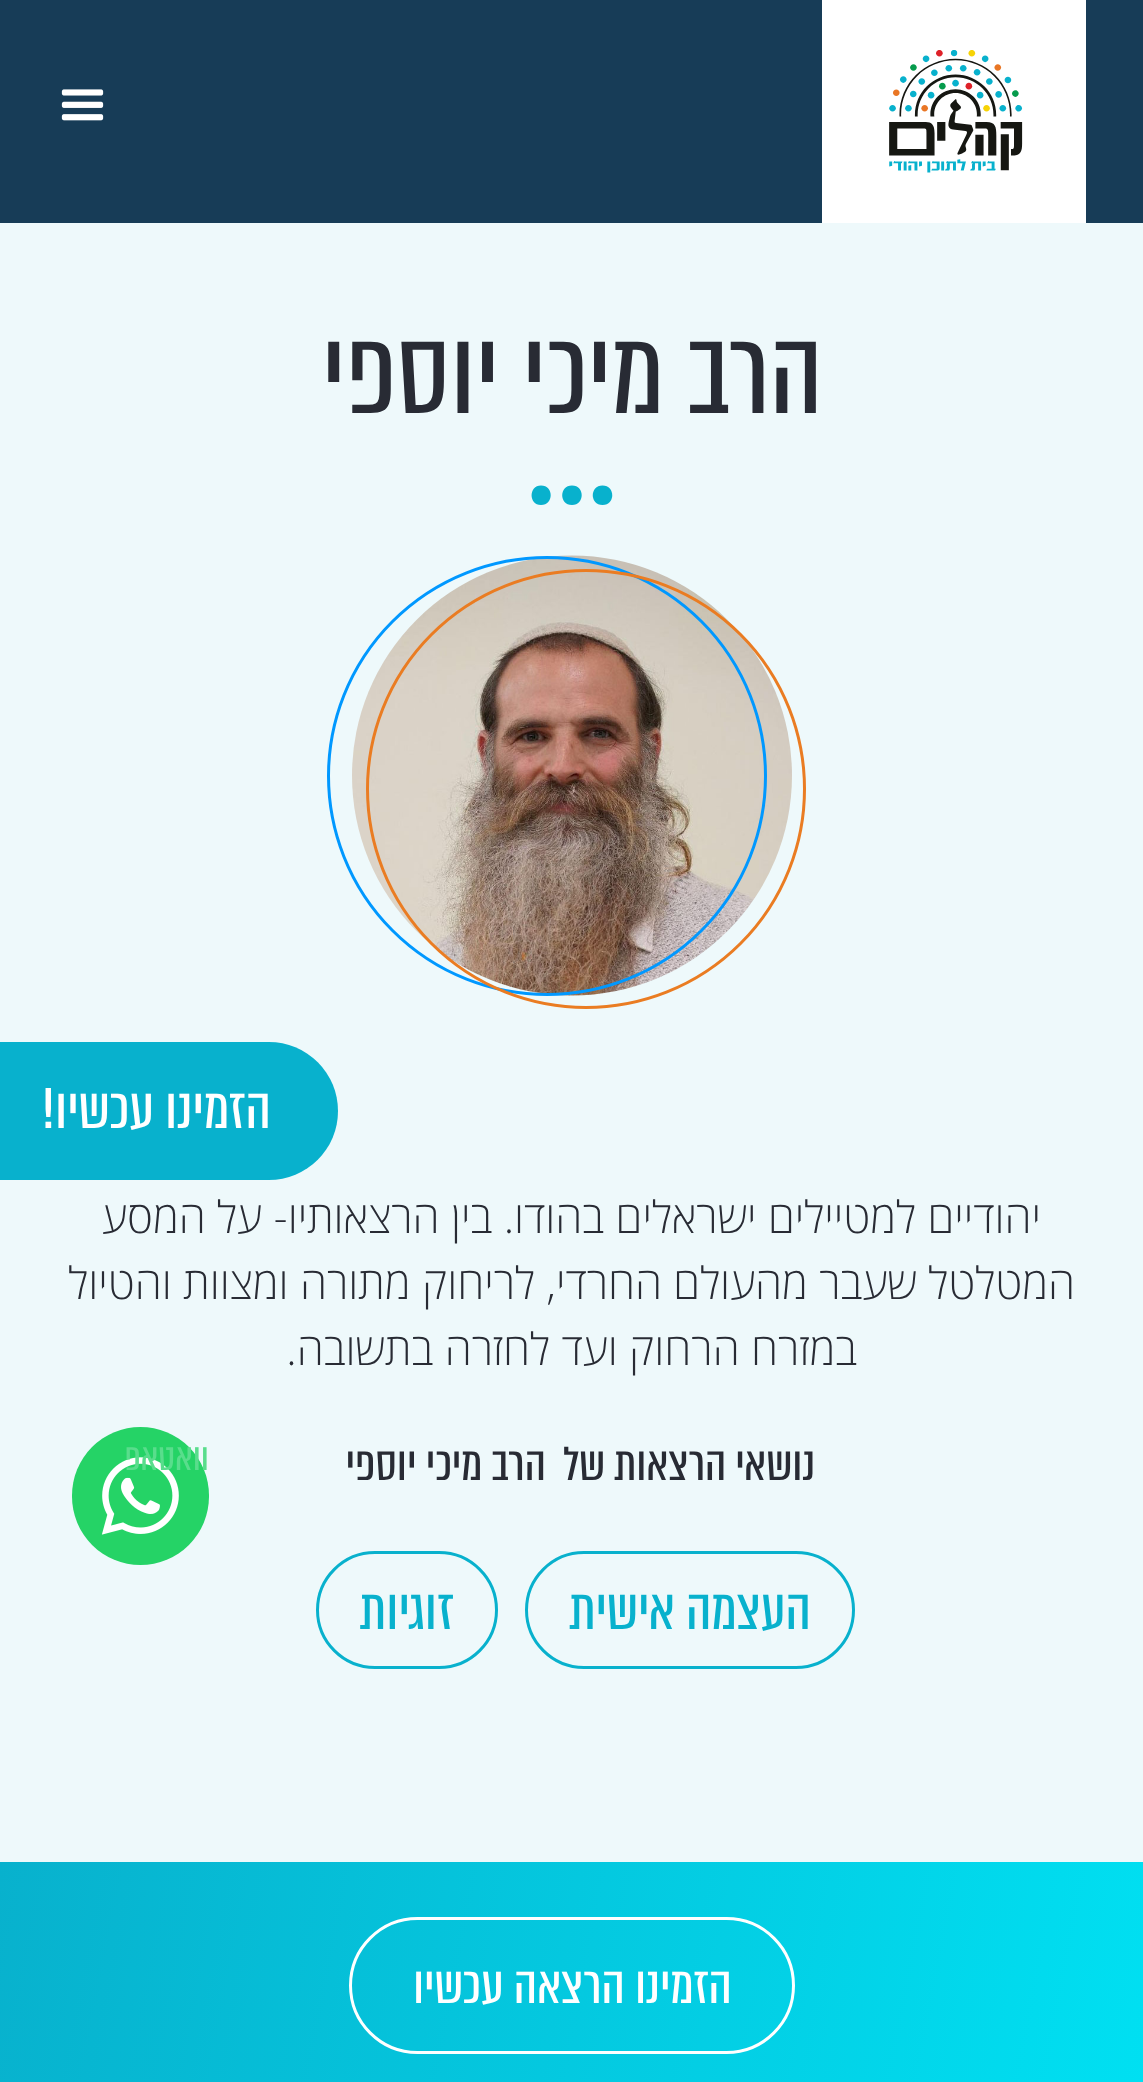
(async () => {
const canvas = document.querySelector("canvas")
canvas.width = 1143
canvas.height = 2082
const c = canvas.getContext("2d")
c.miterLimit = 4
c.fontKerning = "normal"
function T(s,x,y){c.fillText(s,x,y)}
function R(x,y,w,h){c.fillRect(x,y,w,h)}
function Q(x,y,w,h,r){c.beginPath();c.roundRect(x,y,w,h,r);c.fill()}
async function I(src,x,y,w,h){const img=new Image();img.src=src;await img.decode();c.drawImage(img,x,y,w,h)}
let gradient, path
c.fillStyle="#eef9fb"
R(0,0,1143,2082)
c.fillStyle="#173c57"
R(0,0,1143,223)
c.fillStyle="#fff"
R(822,0,264,223)
await I("1.png",889,50,134,123)
await I("2.png",61,89,43,32)
c.direction="rtl"
c.font="137.5px 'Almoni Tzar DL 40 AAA'"
c.fillStyle="#282b34"
T("הרב מיכי יוספי",823,413)
c.fillStyle="#08b1cd"
path = new Path2D("M541 505c13 0 13-19.5 0-19.5c-12.5 0-12.5 19.5 0 19.5m31 0c13 0 13-19.5 0-19.5c-13 0-13 19.5 0 19.5")
c.fill(path,"evenodd")
path = new Path2D("M602.5 505c13 0 13-19.5 0-19.5c-13 0-13 19.5 0 19.5")
c.fill(path,"evenodd")
await I("3.png",352,555,440,441)
c.beginPath()
c.arc(547,776,218.5,0,7)
c.strokeStyle="#0098ff"
c.lineWidth=3
c.stroke()
c.beginPath()
c.arc(586,789,218.5,0,7)
c.strokeStyle="#ea7c22"
c.stroke()
c.font="300 44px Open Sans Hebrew"
c.fillStyle="#282b34"
T("יהודיים למטיילים ישראלים בהודו. בין הרצאותיו- על המסע",1041,1233)
T("המטלטל שעבר מהעולם החרדי, לריחוק מתורה ומצוות והטיול",1075,1299)
T("במזרח הרחוק ועד לחזרה בתשובה.",857,1365)
c.font="55px 'Almoni Tzar DL 40 AAA'"
T("נושאי הרצאות של",815,1480)
T("הרב מיכי יוספי",546,1480)
c.beginPath()
c.roundRect(526.5,1552.5,327,115,57.5)
c.strokeStyle="#08b1cd"
c.stroke()
c.font="66px 'Almoni Tzar DL 40 AAA'"
c.fillStyle="#08b1cd"
T("העצמה אישית",811,1629)
c.beginPath()
c.roundRect(317.5,1552.5,179,115,57.5)
c.stroke()
T("זוגיות",454,1629)
c.beginPath()
c.roundRect(0,1042,338,138,[0,69,69,0])
c.fill()
c.fillStyle="#fff"
T("הזמינו עכשיו!",271,1128)
c.fillStyle="#25d366"
Q(72,1427,137,138,68.5)
await I("4.png",101,1457,78,78)
c.font="44px 'Almoni Tzar DL 40 AAA'"
c.fillStyle="#59dd8c"
T("וואטאפ",209,1470)
gradient = c.createLinearGradient(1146,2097,-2.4,1874)
gradient.addColorStop(0,"#00e0f2")
gradient.addColorStop(1,"#08b1cd")
c.fillStyle = gradient
R(0,1862,1143,220)
c.beginPath()
c.roundRect(350.5,1918.5,443,134,67)
c.strokeStyle="#fff"
c.stroke()
c.font="60.5px 'Almoni Tzar DL 40 AAA'"
c.fillStyle="#fff"
T("הזמינו הרצאה עכשיו",732,2003)
})()
